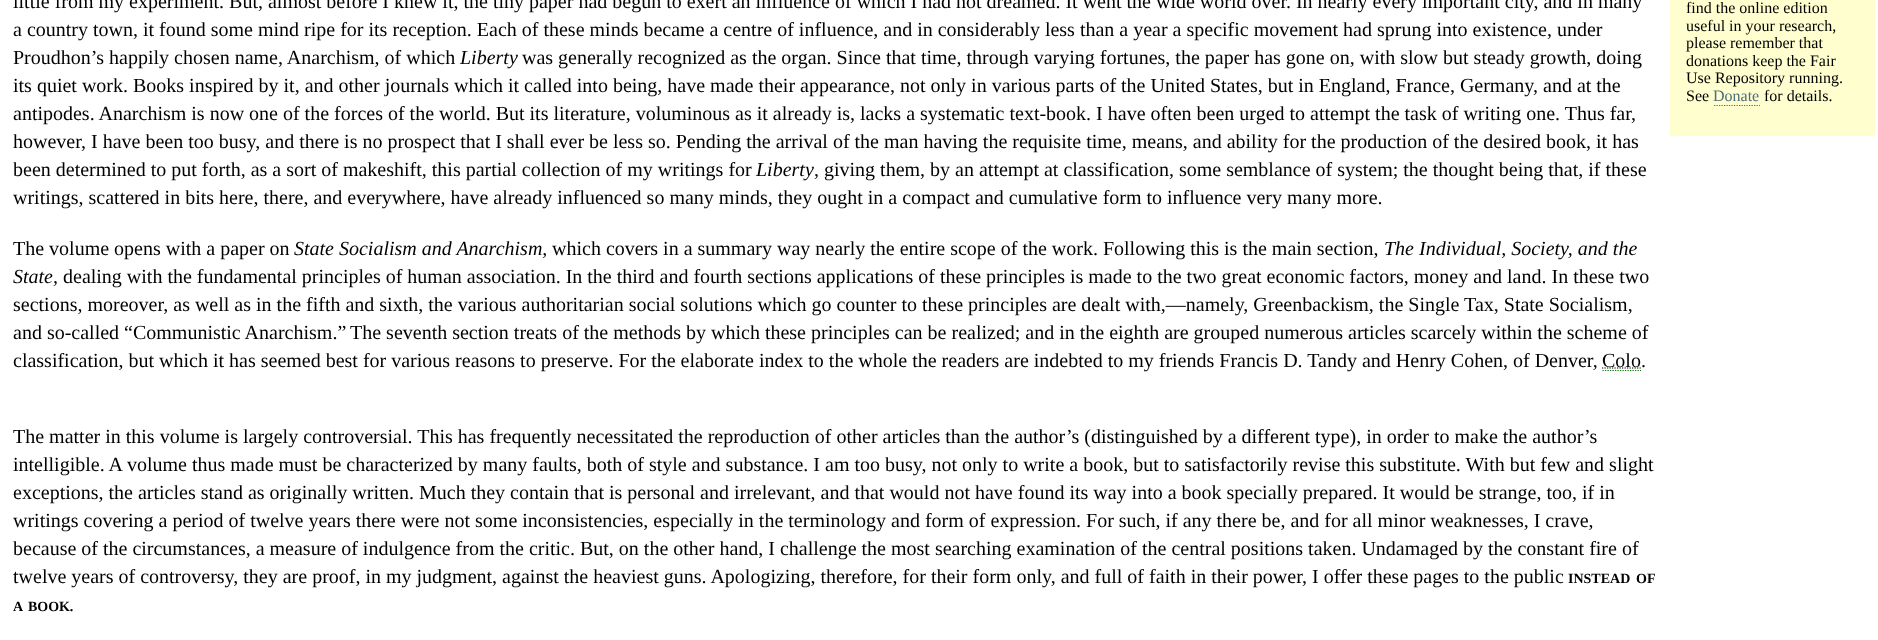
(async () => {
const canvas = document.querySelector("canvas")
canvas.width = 1878
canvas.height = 640
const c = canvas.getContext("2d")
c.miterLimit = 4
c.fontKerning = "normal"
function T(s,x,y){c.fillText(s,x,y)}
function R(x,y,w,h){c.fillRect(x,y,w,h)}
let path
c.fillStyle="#fff"
R(0,0,1878,640)
c.font="20px Liberation Serif"
c.fillStyle="#000"
T("little from my experiment. But, almost before I knew it, the tiny paper had begun to exert an influence of which I had not dreamed. It went the wide world over. In nearly every important city, and in many",13,8)
T("a country town, it found some mind ripe for its reception. Each of these minds became a centre of influence, and in considerably less than a year a specific movement had sprung into existence, under",13,36)
T("Proudhon’s happily chosen name, Anarchism, of which",13,64)
c.font="italic 20px Liberation Serif"
T("Liberty",460,64)
c.font="20px Liberation Serif"
T("was generally recognized as the organ. Since that time, through varying fortunes, the paper has gone on, with slow but steady growth, doing",522,64)
T("its quiet work. Books inspired by it, and other journals which it called into being, have made their appearance, not only in various parts of the United States, but in England, France, Germany, and at the",13,92)
T("antipodes. Anarchism is now one of the forces of the world. But its literature, voluminous as it already is, lacks a systematic text-book. I have often been urged to attempt the task of writing one. Thus far,",13,120)
T("however, I have been too busy, and there is no prospect that I shall ever be less so. Pending the arrival of the man having the requisite time, means, and ability for the production of the desired book, it has",13,148)
T("been determined to put forth, as a sort of makeshift, this partial collection of my writings for",13,176)
c.font="italic 20px Liberation Serif"
T("Liberty",756,176)
c.font="20px Liberation Serif"
T(", giving them, by an attempt at classification, some semblance of system; the thought being that, if these",814,176)
T("writings, scattered in bits here, there, and everywhere, have already influenced so many minds, they ought in a compact and cumulative form to influence very many more.",13,204)
T("The volume opens with a paper on",13,255)
c.font="italic 20px Liberation Serif"
T("State Socialism and Anarchism,",294,255)
c.font="20px Liberation Serif"
T("which covers in a summary way nearly the entire scope of the work. Following this is the main section,",552,255)
c.font="italic 20px Liberation Serif"
T("The Individual, Society, and the",1384,255)
T("State,",13,283)
c.font="20px Liberation Serif"
T("dealing with the fundamental principles of human association. In the third and fourth sections applications of these principles is made to the two great economic factors, money and land. In these two",63,283)
T("sections, moreover, as well as in the fifth and sixth, the various authoritarian social solutions which go counter to these principles are dealt with,—namely, Greenbackism, the Single Tax, State Socialism,",13,311)
T("and so-called “Communistic Anarchism.”",13,339)
T("The seventh section treats of the methods by which these principles can be realized; and in the eighth are grouped numerous articles scarcely within the scheme of",350,339)
T("classification, but which it has seemed best for various reasons to preserve. For the elaborate index to the whole the readers are indebted to my friends Francis D. Tandy and Henry Cohen, of Denver,",13,367)
path = new Path2D("M1602 368h39")
c.strokeStyle="#000"
c.lineWidth=1.2
c.setLineDash([1.25,1.25])
c.stroke(path)
T("Colo.",1602,367)
path = new Path2D("M1602.5 370.5h38.5")
c.strokeStyle="#087808"
c.stroke(path)
T("The matter in this volume is largely controversial. This has frequently necessitated the reproduction of other articles than the author’s (distinguished by a different type), in order to make the author’s",13,443)
T("intelligible. A volume thus made must be characterized by many faults, both of style and substance. I am too busy, not only to write a book, but to satisfactorily revise this substitute. With but few and slight",13,471)
T("exceptions, the articles stand as originally written. Much they contain that is personal and irrelevant, and that would not have found its way into a book specially prepared. It would be strange, too, if in",13,499)
T("writings covering a period of twelve years there were not some inconsistencies, especially in the terminology and form of expression. For such, if any there be, and for all minor weaknesses, I crave,",13,527)
T("because of the circumstances, a measure of indulgence from the critic. But, on the other hand, I challenge the most searching examination of the central positions taken. Undamaged by the constant fire of",13,555)
T("twelve years of controversy, they are proof, in my judgment, against the heaviest guns. Apologizing, therefore, for their form only, and full of faith in their power, I offer these pages to the public",13,583)
c.font="bold 14px Liberation Serif"
T("INSTEAD",1568,583)
T("OF",1636,583)
T("A",13,611)
T("BOOK",28,611)
c.font="20px Liberation Serif"
T(".",69,611)
c.fillStyle="#fefece"
R(1670,0,205,136)
c.font="16px Liberation Serif"
c.fillStyle="#000"
T("find the online edition",1686,13)
T("useful in your research,",1686,31)
T("please remember that",1686,48)
T("donations keep the Fair",1686,66)
T("Use Repository running.",1686,83)
T("See",1686,101)
c.fillStyle="#4f6b7e"
T("Donate",1713,101)
path = new Path2D("M1714 105.5h46")
c.strokeStyle="#4f6b7e"
c.stroke(path)
c.fillStyle="#000"
T("for details.",1764,101)
})()
